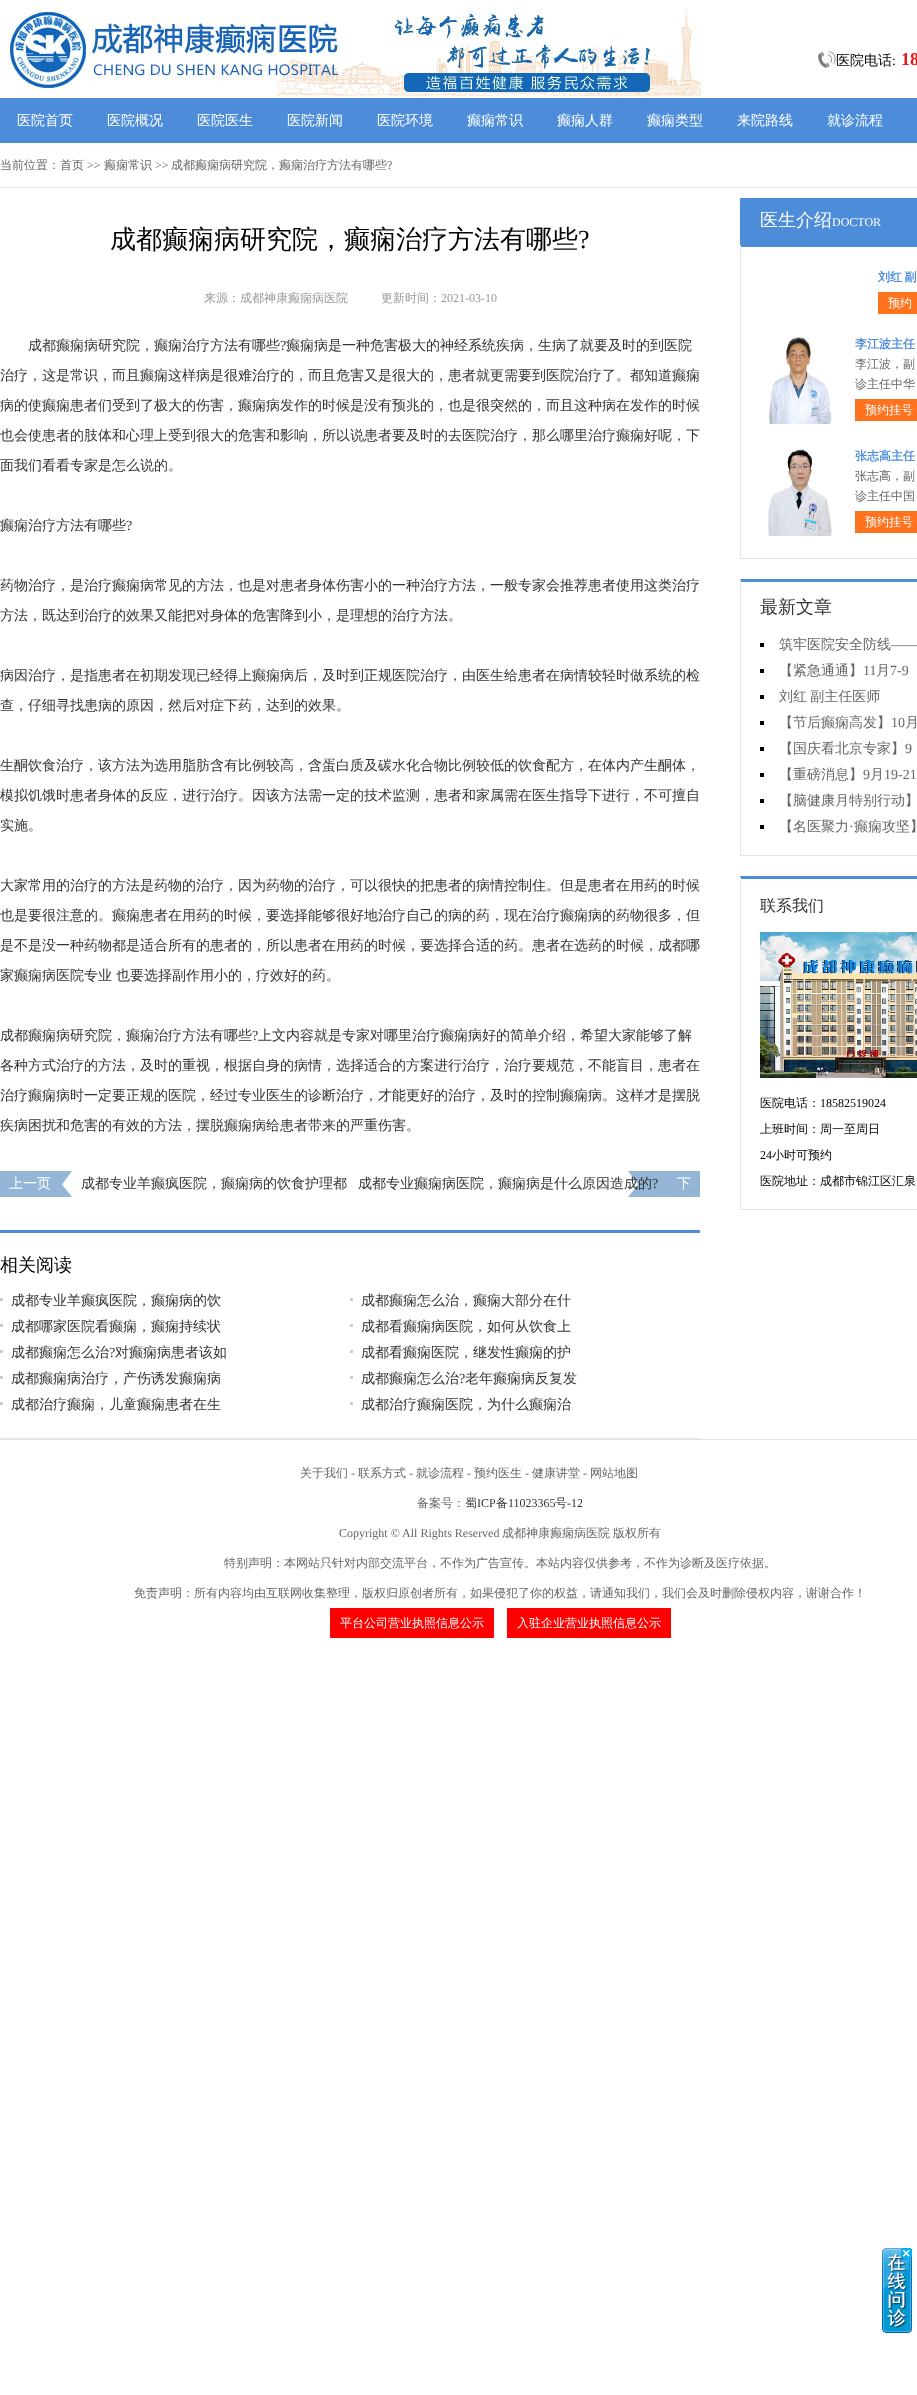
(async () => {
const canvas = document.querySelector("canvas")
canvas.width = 917
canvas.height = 2395
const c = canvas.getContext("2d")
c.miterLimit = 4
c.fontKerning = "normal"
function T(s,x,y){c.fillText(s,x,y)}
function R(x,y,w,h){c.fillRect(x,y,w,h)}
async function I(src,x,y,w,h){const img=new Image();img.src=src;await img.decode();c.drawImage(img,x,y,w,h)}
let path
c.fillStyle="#fff"
R(0,0,917,2395)
await I("1.png",8,8,696,88)
await I("2.png",818,50,18,18)
c.font="500 14px WenQuanYi Zen Hei"
c.fillStyle="#000"
T("医院电话",836,65)
c.font="14px Liberation Serif"
T(":",892,65)
c.font="bold 18px Liberation Serif"
c.fillStyle="#e8171a"
T("18",901,65)
c.fillStyle="#4c8cd9"
R(0,98,917,45)
c.font="500 14px WenQuanYi Zen Hei"
c.fillStyle="#fff"
T("医院首页",17,125)
T("医院概况",107,125)
T("医院医生",197,125)
T("医院新闻",287,125)
T("医院环境",377,125)
T("癫痫常识",467,125)
T("癫痫人群",557,125)
T("癫痫类型",647,125)
T("来院路线",737,125)
T("就诊流程",827,125)
c.fillStyle="#e4e4e4"
R(0,187,917,1)
c.font="500 12px WenQuanYi Zen Hei"
c.fillStyle="#666"
T("当前位置：首页",0,169)
c.font="12px Liberation Serif"
T(">>",87,169)
c.font="500 12px WenQuanYi Zen Hei"
T("癫痫常识",104,169)
c.font="12px Liberation Serif"
T(">>",155,169)
c.font="500 12px WenQuanYi Zen Hei"
T("成都癫痫病研究院，癫痫治疗方法有哪些",171,169)
c.font="12px Liberation Serif"
T("?",387,169)
c.fillStyle="#4c8cd9"
R(0,1230,700,3)
c.font="500 26px WenQuanYi Zen Hei"
c.fillStyle="#000"
T("成都癫痫病研究院，癫痫治疗方法有哪些",110,248)
c.font="26px Liberation Serif"
T("?",578,248)
c.font="500 12px WenQuanYi Zen Hei"
c.fillStyle="#999"
T("来源：成都神康癫痫病医院",204,302)
T("更新时间：",381,302)
c.font="12px Liberation Serif"
T("2021-03-10",441,302)
c.font="500 14px WenQuanYi Zen Hei"
c.fillStyle="#333"
T("成都癫痫病研究院，癫痫治疗方法有哪些",28,350)
c.font="14px Liberation Serif"
T("?",280,350)
c.font="500 14px WenQuanYi Zen Hei"
T("癫痫病是一种危害极大的神经系统疾病，生病了就要及时的到医院",286,350)
T("治疗，这是常识，而且癫痫这样病是很难治疗的，而且危害又是很大的，患者就更需要到医院治疗了。都知道癫痫",0,380)
T("病的使癫痫患者们受到了极大的伤害，癫痫病发作的时候是没有预兆的，也是很突然的，而且这种病在发作的时候",0,410)
T("也会使患者的肢体和心理上受到很大的危害和影响，所以说患者要及时的去医院治疗，那么哪里治疗癫痫好呢，下",0,440)
T("面我们看看专家是怎么说的。",0,470)
T("癫痫治疗方法有哪些",0,530)
c.font="14px Liberation Serif"
T("?",126,530)
c.font="500 14px WenQuanYi Zen Hei"
T("药物治疗，是治疗癫痫病常见的方法，也是对患者身体伤害小的一种治疗方法，一般专家会推荐患者使用这类治疗",0,590)
T("方法，既达到治疗的效果又能把对身体的危害降到小，是理想的治疗方法。",0,620)
T("病因治疗，是指患者在初期发现已经得上癫痫病后，及时到正规医院治疗，由医生给患者在病情较轻时做系统的检",0,680)
T("查，仔细寻找患病的原因，然后对症下药，达到的效果。",0,710)
T("生酮饮食治疗，该方法为选用脂肪含有比例较高，含蛋白质及碳水化合物比例较低的饮食配方，在体内产生酮体，",0,770)
T("模拟饥饿时患者身体的反应，进行治疗。因该方法需一定的技术监测，患者和家属需在医生指导下进行，不可擅自",0,800)
T("实施。",0,830)
T("大家常用的治疗的方法是药物的治疗，因为药物的治疗，可以很快的把患者的病情控制住。但是患者在用药的时候",0,890)
T("也是要很注意的。癫痫患者在用药的时候，要选择能够很好地治疗自己的病的药，现在治疗癫痫病的药物很多，但",0,920)
T("是不是没一种药物都是适合所有的患者的，所以患者在用药的时候，要选择合适的药。患者在选药的时候，成都哪",0,950)
T("家癫痫病医院专业",0,980)
T("也要选择副作用小的，疗效好的药。",116,980)
T("成都癫痫病研究院，癫痫治疗方法有哪些",0,1040)
c.font="14px Liberation Serif"
T("?",252,1040)
c.font="500 14px WenQuanYi Zen Hei"
T("上文内容就是专家对哪里治疗癫痫病好的简单介绍，希望大家能够了解",258,1040)
T("各种方式治疗的方法，及时的重视，根据自身的病情，选择适合的方案进行治疗，治疗要规范，不能盲目，患者在",0,1070)
T("治疗癫痫病时一定要正规的医院，经过专业医生的诊断治疗，才能更好的治疗，及时的控制癫痫病。这样才是摆脱",0,1100)
T("疾病困扰和危害的有效的方法，摆脱癫痫病给患者带来的严重伤害。",0,1130)
await I("3.png",0,1171,72,26)
c.fillStyle="#fff"
T("上一页",9,1188)
c.fillStyle="#333"
T("成都专业羊癫疯医院，癫痫病的饮食护理都",81,1188)
await I("4.png",628,1171,72,26)
T("成都专业癫痫病医院，癫痫病是什么原因造成的",358,1188)
c.font="14px Liberation Serif"
T("?",652,1188)
c.font="500 14px WenQuanYi Zen Hei"
c.fillStyle="#fff"
T("下",677,1188)
c.fillStyle="#e4e4e4"
R(0,1438,700,1)
c.font="500 18px WenQuanYi Zen Hei"
c.fillStyle="#000"
T("相关阅读",0,1271)
c.fillStyle="#ccc"
R(0,1298,3,3)
c.font="500 14px WenQuanYi Zen Hei"
c.fillStyle="#333"
T("成都专业羊癫疯医院，癫痫病的饮",11,1305)
c.fillStyle="#ccc"
R(350,1298,3,3)
c.fillStyle="#333"
T("成都癫痫怎么治，癫痫大部分在什",361,1305)
c.fillStyle="#ccc"
R(0,1324,3,3)
c.fillStyle="#333"
T("成都哪家医院看癫痫，癫痫持续状",11,1331)
c.fillStyle="#ccc"
R(350,1324,3,3)
c.fillStyle="#333"
T("成都看癫痫病医院，如何从饮食上",361,1331)
c.fillStyle="#ccc"
R(0,1350,3,3)
c.fillStyle="#333"
T("成都癫痫怎么治",11,1357)
c.font="14px Liberation Serif"
T("?",109,1357)
c.font="500 14px WenQuanYi Zen Hei"
T("对癫痫病患者该如",115,1357)
c.fillStyle="#ccc"
R(350,1350,3,3)
c.fillStyle="#333"
T("成都看癫痫医院，继发性癫痫的护",361,1357)
c.fillStyle="#ccc"
R(0,1376,3,3)
c.fillStyle="#333"
T("成都癫痫病治疗，产伤诱发癫痫病",11,1383)
c.fillStyle="#ccc"
R(350,1376,3,3)
c.fillStyle="#333"
T("成都癫痫怎么治",361,1383)
c.font="14px Liberation Serif"
T("?",459,1383)
c.font="500 14px WenQuanYi Zen Hei"
T("老年癫痫病反复发",465,1383)
c.fillStyle="#ccc"
R(0,1402,3,3)
c.fillStyle="#333"
T("成都治疗癫痫，儿童癫痫患者在生",11,1409)
c.fillStyle="#ccc"
R(350,1402,3,3)
c.fillStyle="#333"
T("成都治疗癫痫医院，为什么癫痫治",361,1409)
c.fillStyle="#4c8cd9"
R(740,198,177,47)
c.font="500 18px WenQuanYi Zen Hei"
c.fillStyle="#fff"
T("医生介绍",760,226)
c.font="12px Liberation Serif"
T("DOCTOR",832,226)
c.fillStyle="#4c8cd9"
path = new Path2D("M740 244h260l-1 3h-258z")
c.fill(path)
c.fillStyle="#e4e4e4"
R(740,558,177,1)
path = new Path2D("M740 559v-315l1 3v311z")
c.fill(path)
c.wordSpacing="-1px"
c.font="bold 12px WenQuanYi Zen Hei"
c.fillStyle="#4c8cd9"
T("刘红 副",878,281)
c.fillStyle="#ff731e"
R(878,292,39,22)
c.wordSpacing="0px"
c.font="500 12px WenQuanYi Zen Hei"
c.fillStyle="#fff"
T("预约",888,307)
await I("5.png",769,337,63,87)
c.font="bold 12px WenQuanYi Zen Hei"
c.fillStyle="#4c8cd9"
T("李江波主任",855,348)
c.font="500 12px WenQuanYi Zen Hei"
c.fillStyle="#666"
T("李江波，副",855,368)
T("诊主任中华",855,388)
c.fillStyle="#ff731e"
R(855,399,62,22)
c.fillStyle="#fff"
T("预约挂号",865,414)
await I("6.png",768,449,64,87)
c.font="bold 12px WenQuanYi Zen Hei"
c.fillStyle="#4c8cd9"
T("张志高主任",855,460)
c.font="500 12px WenQuanYi Zen Hei"
c.fillStyle="#666"
T("张志高，副",855,480)
T("诊主任中国",855,500)
c.fillStyle="#ff731e"
R(855,511,62,22)
c.fillStyle="#fff"
T("预约挂号",865,526)
c.fillStyle="#4c8cd9"
path = new Path2D("M740 579h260l-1 3h-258z")
c.fill(path)
c.fillStyle="#e4e4e4"
R(740,855,177,1)
path = new Path2D("M740 856v-277l1 3v273z")
c.fill(path)
c.font="500 18px WenQuanYi Zen Hei"
c.fillStyle="#333"
T("最新文章",760,613)
c.fillStyle="#000"
R(760,643,4,4)
c.font="500 14px WenQuanYi Zen Hei"
c.fillStyle="#666"
T("筑牢医院安全防线",779,649)
c.font="14px Liberation Serif"
T("——",891,649)
c.fillStyle="#000"
R(760,669,4,4)
c.font="500 14px WenQuanYi Zen Hei"
c.fillStyle="#666"
T("【紧急通通】",779,675)
c.font="14px Liberation Serif"
T("11",863,675)
c.font="500 14px WenQuanYi Zen Hei"
T("月",876,675)
c.font="14px Liberation Serif"
T("7-9",890,675)
c.fillStyle="#000"
R(760,695,4,4)
c.wordSpacing="-1px"
c.font="500 14px WenQuanYi Zen Hei"
c.fillStyle="#666"
T("刘红 副主任医师",779,701)
c.fillStyle="#000"
R(760,721,4,4)
c.wordSpacing="0px"
c.fillStyle="#666"
T("【节后癫痫高发】",779,727)
c.font="14px Liberation Serif"
T("10",891,727)
c.font="500 14px WenQuanYi Zen Hei"
T("月",905,727)
c.fillStyle="#000"
R(760,747,4,4)
c.fillStyle="#666"
T("【国庆看北京专家】",779,753)
c.font="14px Liberation Serif"
T("9",905,753)
c.fillStyle="#000"
R(760,773,4,4)
c.font="500 14px WenQuanYi Zen Hei"
c.fillStyle="#666"
T("【重磅消息】",779,779)
c.font="14px Liberation Serif"
T("9",863,779)
c.font="500 14px WenQuanYi Zen Hei"
T("月",870,779)
c.font="14px Liberation Serif"
T("19-21",884,779)
c.fillStyle="#000"
R(760,799,4,4)
c.font="500 14px WenQuanYi Zen Hei"
c.fillStyle="#666"
T("【脑健康月特别行动】",779,805)
c.fillStyle="#000"
R(760,825,4,4)
c.fillStyle="#666"
T("【名医聚力",779,831)
c.font="14px Liberation Serif"
T("·",849,831)
c.font="500 14px WenQuanYi Zen Hei"
T("癫痫攻坚】",854,831)
c.fillStyle="#4c8cd9"
path = new Path2D("M740 876h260l-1 3h-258z")
c.fill(path)
c.fillStyle="#e4e4e4"
R(740,1209,177,1)
path = new Path2D("M740 1210v-334l1 3v330z")
c.fill(path)
c.font="500 16px WenQuanYi Zen Hei"
c.fillStyle="#333"
T("联系我们",760,911)
await I("7.png",760,932,157,146)
c.font="500 12px WenQuanYi Zen Hei"
c.fillStyle="#000"
T("医院电话：",760,1107)
c.font="12px Liberation Serif"
T("18582519024",820,1107)
c.font="500 12px WenQuanYi Zen Hei"
T("上班时间：周一至周日",760,1133)
c.font="12px Liberation Serif"
T("24",760,1159)
c.font="500 12px WenQuanYi Zen Hei"
T("小时可预约",772,1159)
T("医院地址：成都市锦江区汇泉",760,1185)
c.fillStyle="#e4e4e4"
R(0,1439,917,1)
c.fillStyle="#666"
T("关于我们",300,1477)
c.font="12px Liberation Serif"
T("-",351,1477)
c.font="500 12px WenQuanYi Zen Hei"
T("联系方式",358,1477)
c.font="12px Liberation Serif"
T("-",409,1477)
c.font="500 12px WenQuanYi Zen Hei"
T("就诊流程",416,1477)
c.font="12px Liberation Serif"
T("-",467,1477)
c.font="500 12px WenQuanYi Zen Hei"
T("预约医生",474,1477)
c.font="12px Liberation Serif"
T("-",525,1477)
c.font="500 12px WenQuanYi Zen Hei"
T("健康讲堂",532,1477)
c.font="12px Liberation Serif"
T("-",583,1477)
c.font="500 12px WenQuanYi Zen Hei"
T("网站地图",590,1477)
T("备案号：",417,1507)
c.fillStyle="#333"
T("蜀",465,1507)
c.font="12px Liberation Serif"
T("ICP",477,1507)
c.font="500 12px WenQuanYi Zen Hei"
T("备",496,1507)
c.font="12px Liberation Serif"
T("11023365",508,1507)
c.font="500 12px WenQuanYi Zen Hei"
T("号",555,1507)
c.font="12px Liberation Serif"
T("-12",567,1507)
c.fillStyle="#666"
T("Copyright © All Rights Reserved",339,1537)
c.font="500 12px WenQuanYi Zen Hei"
T("成都神康癫痫病医院",502,1537)
T("版权所有",613,1537)
T("特别声明：本网站只针对内部交流平台，不作为广告宣传。本站内容仅供参考，不作为诊断及医疗依据。",224,1567)
T("免责声明：所有内容均由互联网收集整理，版权归原创者所有，如果侵犯了你的权益，请通知我们，我们会及时删除侵权内容，谢谢合作！",134,1597)
c.fillStyle="#f00"
R(330,1608,164,30)
c.fillStyle="#fff"
T("平台公司营业执照信息公示",340,1627)
c.fillStyle="#f00"
R(507,1608,164,30)
c.fillStyle="#fff"
T("入驻企业营业执照信息公示",517,1627)
await I("8.png",882,2248,30,85)
await I("9.png",901,2248,11,11)
})()
